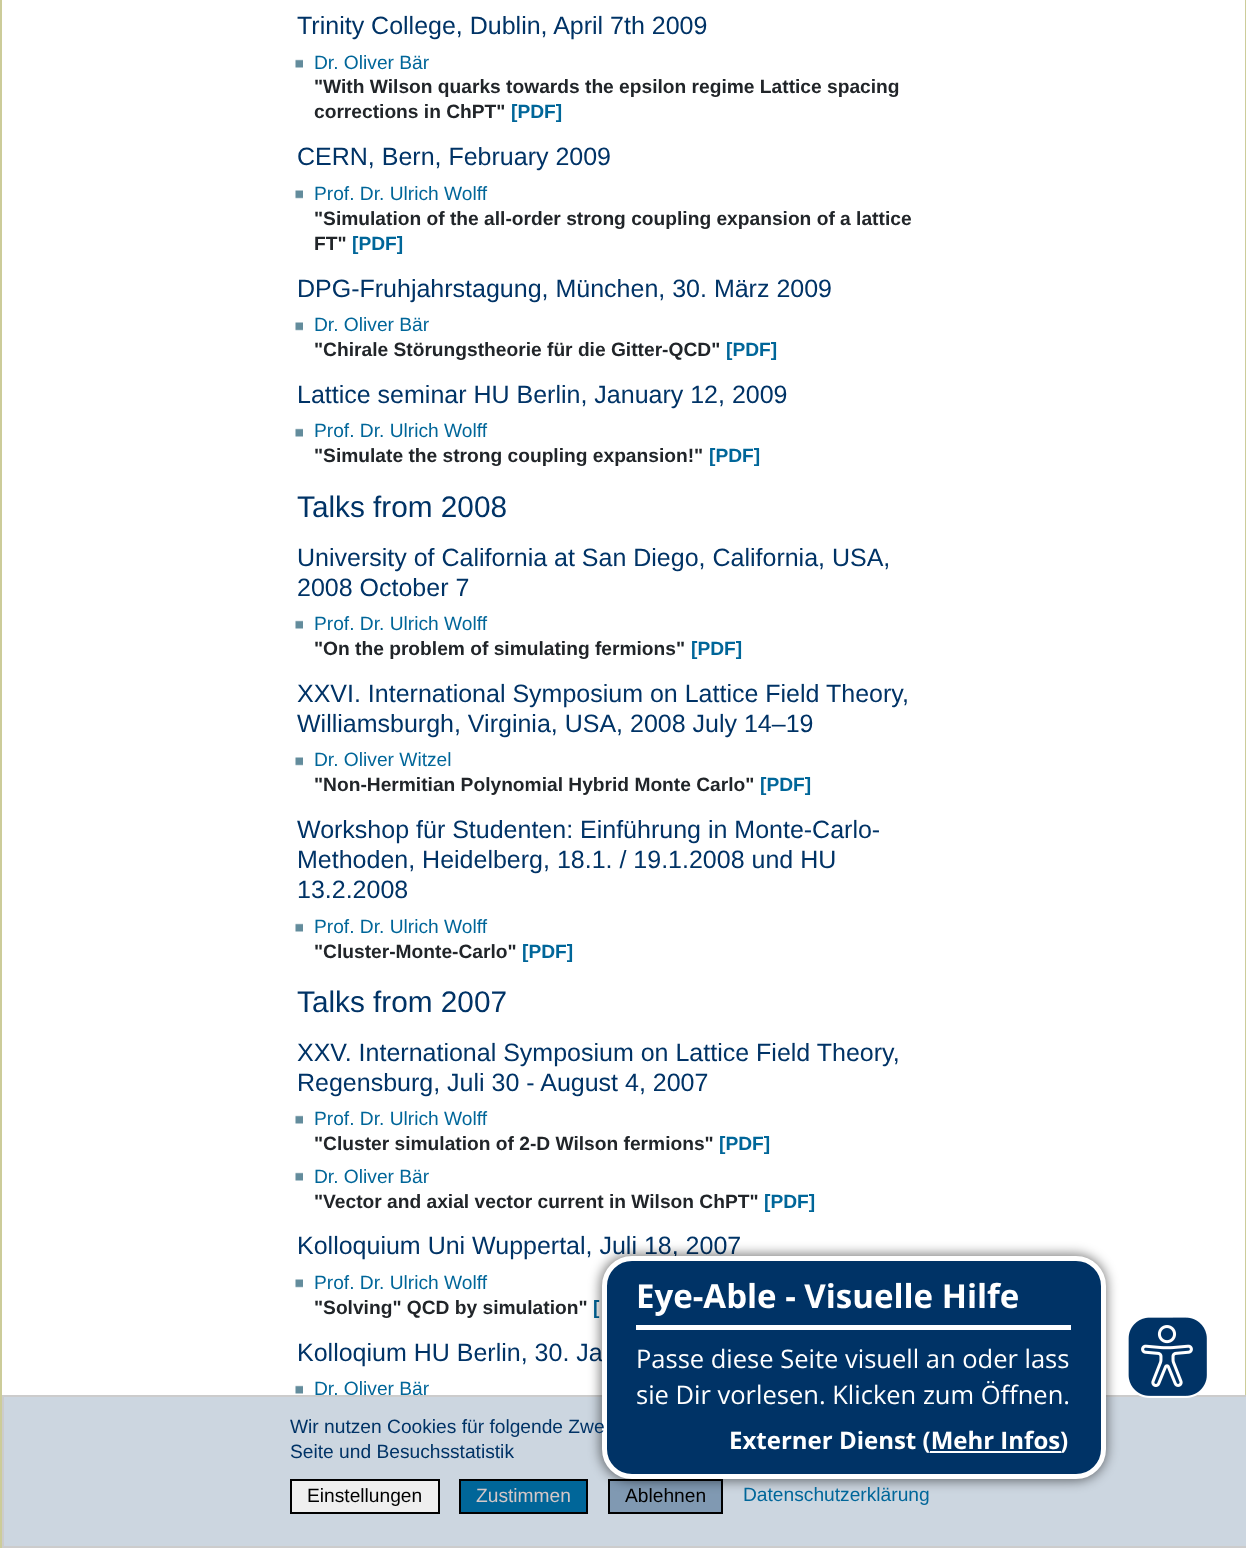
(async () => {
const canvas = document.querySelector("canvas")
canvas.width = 1246
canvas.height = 1548
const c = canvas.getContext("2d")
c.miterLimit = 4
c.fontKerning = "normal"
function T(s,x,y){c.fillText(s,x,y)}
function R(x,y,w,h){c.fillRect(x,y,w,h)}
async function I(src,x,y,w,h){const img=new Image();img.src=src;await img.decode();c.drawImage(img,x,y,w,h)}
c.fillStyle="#fff"
R(0,0,1246,1548)
c.fillStyle="#cc9"
R(1245,0,1,1395)
R(0,0,2,1548)
c.font="25px Liberation Sans"
c.fillStyle="#036"
T("Trinity College, Dublin, April 7th 2009",297,34)
await I("1.png",295,59,8,9)
c.font="19.2px Liberation Sans"
c.fillStyle="#069"
T("Dr. Oliver Bär",314,69)
c.font="bold 19.2px Liberation Sans"
c.fillStyle="#212529"
T("\"With Wilson quarks towards the epsilon regime Lattice spacing",314,93)
T("corrections in ChPT\"",314,118)
c.fillStyle="#069"
T("[PDF]",511,118)
c.font="25px Liberation Sans"
c.fillStyle="#036"
T("CERN, Bern, February 2009",297,165)
await I("2.png",295,190,8,9)
c.font="19.2px Liberation Sans"
c.fillStyle="#069"
T("Prof. Dr. Ulrich Wolff",314,200)
c.font="bold 19.2px Liberation Sans"
c.fillStyle="#212529"
T("\"Simulation of the all-order strong coupling expansion of a lattice",314,225)
T("FT\"",314,250)
c.fillStyle="#069"
T("[PDF]",352,250)
c.font="25px Liberation Sans"
c.fillStyle="#036"
T("DPG-Fruhjahrstagung, München, 30. März 2009",297,297)
await I("2.png",295,322,8,9)
c.font="19.2px Liberation Sans"
c.fillStyle="#069"
T("Dr. Oliver Bär",314,331)
c.font="bold 19.2px Liberation Sans"
c.fillStyle="#212529"
T("\"Chirale Störungstheorie für die Gitter-QCD\"",314,356)
c.fillStyle="#069"
T("[PDF]",726,356)
c.font="25px Liberation Sans"
c.fillStyle="#036"
T("Lattice seminar HU Berlin, January 12, 2009",297,403)
await I("1.png",295,428,8,9)
c.font="19.2px Liberation Sans"
c.fillStyle="#069"
T("Prof. Dr. Ulrich Wolff",314,437)
c.font="bold 19.2px Liberation Sans"
c.fillStyle="#212529"
T("\"Simulate the strong coupling expansion!\"",314,462)
c.fillStyle="#069"
T("[PDF]",709,462)
c.font="29.75px Liberation Sans"
c.fillStyle="#036"
T("Talks from 2008",297,517)
c.font="25px Liberation Sans"
T("University of California at San Diego, California, USA,",297,566)
T("2008 October 7",297,596)
await I("1.png",295,620,8,9)
c.font="19.2px Liberation Sans"
c.fillStyle="#069"
T("Prof. Dr. Ulrich Wolff",314,630)
c.font="bold 19.2px Liberation Sans"
c.fillStyle="#212529"
T("\"On the problem of simulating fermions\"",314,655)
c.fillStyle="#069"
T("[PDF]",691,655)
c.font="25px Liberation Sans"
c.fillStyle="#036"
T("XXVI. International Symposium on Lattice Field Theory,",297,702)
T("Williamsburgh, Virginia, USA, 2008 July 14–19",297,732)
await I("2.png",295,757,8,9)
c.font="19.2px Liberation Sans"
c.fillStyle="#069"
T("Dr. Oliver Witzel",314,766)
c.font="bold 19.2px Liberation Sans"
c.fillStyle="#212529"
T("\"Non-Hermitian Polynomial Hybrid Monte Carlo\"",314,791)
c.fillStyle="#069"
T("[PDF]",760,791)
c.font="25px Liberation Sans"
c.fillStyle="#036"
T("Workshop für Studenten: Einführung in Monte-Carlo-",297,838)
T("Methoden, Heidelberg, 18.1. / 19.1.2008 und HU",297,868)
T("13.2.2008",297,898)
await I("1.png",295,923,8,9)
c.font="19.2px Liberation Sans"
c.fillStyle="#069"
T("Prof. Dr. Ulrich Wolff",314,933)
c.font="bold 19.2px Liberation Sans"
c.fillStyle="#212529"
T("\"Cluster-Monte-Carlo\"",314,958)
c.fillStyle="#069"
T("[PDF]",522,958)
c.font="29.75px Liberation Sans"
c.fillStyle="#036"
T("Talks from 2007",297,1012)
c.font="25px Liberation Sans"
T("XXV. International Symposium on Lattice Field Theory,",297,1061)
T("Regensburg, Juli 30 - August 4, 2007",297,1091)
await I("1.png",295,1115,8,9)
c.font="19.2px Liberation Sans"
c.fillStyle="#069"
T("Prof. Dr. Ulrich Wolff",314,1125)
c.font="bold 19.2px Liberation Sans"
c.fillStyle="#212529"
T("\"Cluster simulation of 2-D Wilson fermions\"",314,1150)
c.fillStyle="#069"
T("[PDF]",719,1150)
await I("1.png",295,1172,8,9)
c.font="19.2px Liberation Sans"
T("Dr. Oliver Bär",314,1183)
c.font="bold 19.2px Liberation Sans"
c.fillStyle="#212529"
T("\"Vector and axial vector current in Wilson ChPT\"",314,1208)
c.fillStyle="#069"
T("[PDF]",764,1208)
c.font="25px Liberation Sans"
c.fillStyle="#036"
T("Kolloquium Uni Wuppertal, Juli 18, 2007",297,1254)
await I("2.png",295,1279,8,9)
c.font="19.2px Liberation Sans"
c.fillStyle="#069"
T("Prof. Dr. Ulrich Wolff",314,1289)
c.font="bold 19.2px Liberation Sans"
c.fillStyle="#212529"
T("\"Solving\" QCD by simulation\"",314,1314)
c.fillStyle="#069"
T("[",593,1314)
c.font="25px Liberation Sans"
c.fillStyle="#036"
T("Kolloqium HU Berlin, 30. Ja",297,1361)
await I("1.png",295,1385,8,9)
c.font="19.2px Liberation Sans"
c.fillStyle="#069"
T("Dr. Oliver Bär",314,1395)
c.fillStyle="#ccd6e0"
c.beginPath()
c.rect(3,1396,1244,151)
c.fill()
c.strokeStyle="#ccc"
c.lineWidth=2
c.stroke()
c.fillStyle="#069"
c.beginPath()
c.rect(460,1480,127,33)
c.fill()
c.strokeStyle="#000"
c.stroke()
c.fillStyle="#8099b2"
c.beginPath()
c.rect(609,1480,113,33)
c.fill()
c.stroke()
c.fillStyle="#00000080"
c.filter="blur(6px)"
c.beginPath()
c.roundRect(600,1254,507,227,32)
c.fill()
c.filter="none"
c.fillStyle="#036"
c.beginPath()
c.roundRect(604.5,1258.5,499,218,27.5)
c.fill()
c.strokeStyle="#fff"
c.lineWidth=5
c.stroke()
c.fillStyle="#fff"
R(636,1325,435,5)
c.font="bold 33px Open Sans"
T("Eye-Able - Visuelle Hilfe",636,1308)
c.font="25.5px Open Sans"
T("Passe diese Seite visuell an oder lass",636,1368)
T("sie Dir vorlesen. Klicken zum Öffnen.",636,1404)
c.font="bold 24px Open Sans"
T("Externer Dienst (Mehr Infos",729,1449)
R(930,1451,131,2)
T(")",1060,1449)
await I("3.png",1128,1317,79,81)
c.font="19.2px Liberation Sans"
c.fillStyle="#036"
T("Wir nutzen Cookies für folgende Zwe",290,1433)
T("Seite und Besuchsstatistik",290,1458)
c.fillStyle="#efefef"
c.beginPath()
c.rect(291,1480,148,33)
c.fill()
c.strokeStyle="#000"
c.lineWidth=2
c.stroke()
c.fillStyle="#000"
T("Einstellungen",307,1502)
c.fillStyle="#d5c7c7"
T("Zustimmen",476,1502)
c.fillStyle="#000"
T("Ablehnen",625,1502)
c.fillStyle="#069"
T("Datenschutzerklärung",743,1501)
})()
